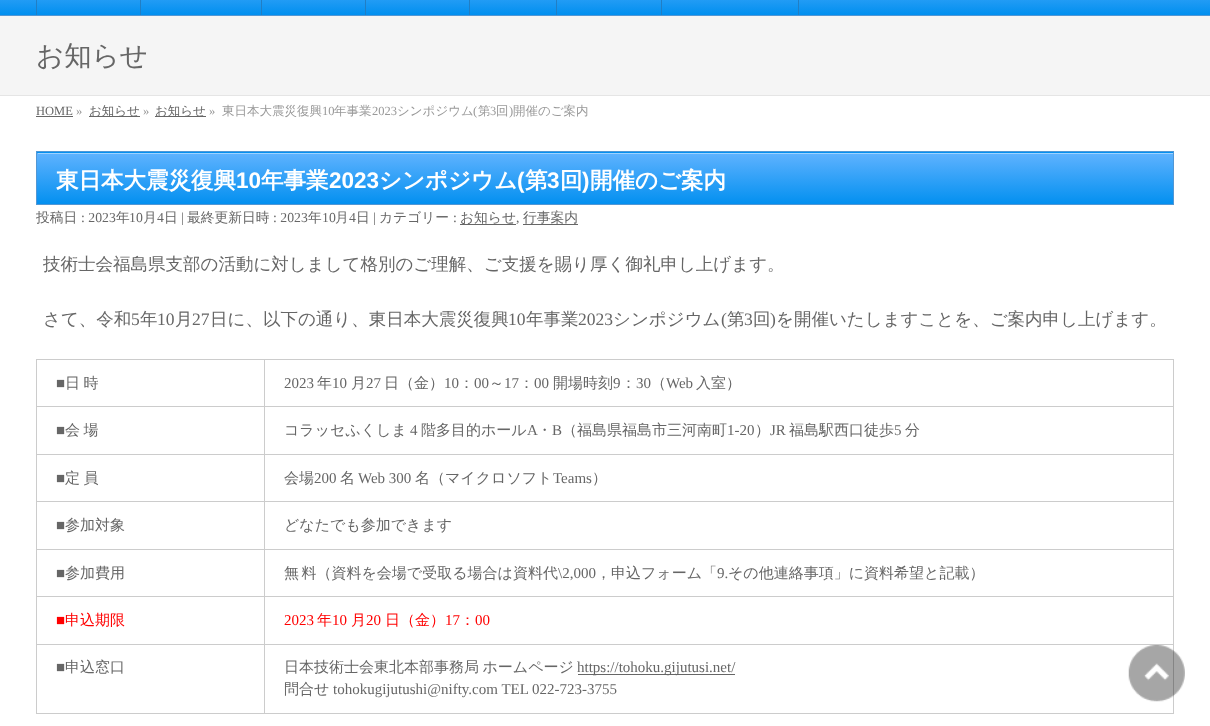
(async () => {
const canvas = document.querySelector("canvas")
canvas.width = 1210
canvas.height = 726
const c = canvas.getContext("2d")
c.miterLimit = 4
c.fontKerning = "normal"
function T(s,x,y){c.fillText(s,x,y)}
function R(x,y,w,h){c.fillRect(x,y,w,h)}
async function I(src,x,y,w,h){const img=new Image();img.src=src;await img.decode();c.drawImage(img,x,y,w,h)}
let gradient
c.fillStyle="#fff"
R(0,0,1210,726)
gradient = c.createLinearGradient(605,-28,605,15)
gradient.addColorStop(0,"#61b3ff")
gradient.addColorStop(1,"#008fef")
c.fillStyle = gradient
R(0,0,1210,15)
c.fillStyle="#5197d5"
R(0,15,1210,1)
c.fillStyle="#217ec4"
R(36,0,1,15)
R(140,0,1,15)
R(261,0,1,15)
R(365,0,1,15)
R(469,0,1,15)
R(556,0,1,15)
R(661,0,1,15)
R(798,0,1,15)
c.fillStyle="#f5f5f5"
R(0,16,1210,79)
c.fillStyle="#e5e5e5"
R(0,95,1210,1)
c.font="500 27.5px WenQuanYi Zen Hei"
c.fillStyle="#666"
T("お知らせ",36,65)
c.font="12.5px Liberation Serif"
T("HOME",36,115)
R(36,116,37,1)
c.fillStyle="#999"
T("»",76,115)
c.fillStyle="#666"
R(89,116,51,1)
c.font="500 12.5px WenQuanYi Zen Hei"
T("お知らせ",89,115)
c.font="12.5px Liberation Serif"
c.fillStyle="#999"
T("»",143,115)
c.fillStyle="#666"
R(155,116,51,1)
c.font="500 12.5px WenQuanYi Zen Hei"
T("お知らせ",155,115)
c.font="12.5px Liberation Serif"
c.fillStyle="#999"
T("»",209,115)
c.font="500 12.5px WenQuanYi Zen Hei"
T("東日本大震災復興",222,115)
c.font="12.5px Liberation Serif"
T("10",322,115)
c.font="500 12.5px WenQuanYi Zen Hei"
T("年事業",334,115)
c.font="12.5px Liberation Serif"
T("2023",372,115)
c.font="500 12.5px WenQuanYi Zen Hei"
T("シンポジウム",397,115)
c.font="12.5px Liberation Serif"
T("(",473,115)
c.font="500 12.5px WenQuanYi Zen Hei"
T("第",478,115)
c.font="12.5px Liberation Serif"
T("3",490,115)
c.font="500 12.5px WenQuanYi Zen Hei"
T("回",496,115)
c.font="12.5px Liberation Serif"
T(")",509,115)
c.font="500 12.5px WenQuanYi Zen Hei"
T("開催のご案内",513,115)
gradient = c.createLinearGradient(605,101,605,153)
gradient.addColorStop(0,"#61b3ff")
gradient.addColorStop(1,"#0390f0")
c.fillStyle = gradient
R(36,152,1138,1)
gradient = c.createLinearGradient(605,152,605,204)
gradient.addColorStop(0,"#61b3ff")
gradient.addColorStop(1,"#0390f0")
c.fillStyle = gradient
R(37,153,1136,51)
c.fillStyle="#9ed1ff"
R(38,153,1135,1)
c.strokeStyle="#5197d5"
c.strokeRect(36.5,151.5,1137,53)
c.font="bold 22.5px WenQuanYi Zen Hei"
c.fillStyle="#fff"
T("東日本大震災復興",56,188)
c.font="bold 22.5px Liberation Sans"
T("10",236,188)
c.font="bold 22.5px WenQuanYi Zen Hei"
T("年事業",261,188)
c.font="bold 22.5px Liberation Sans"
T("2023",329,188)
c.font="bold 22.5px WenQuanYi Zen Hei"
T("シンポジウム",379,188)
c.font="bold 22.5px Liberation Sans"
T("(",517,188)
c.font="bold 22.5px WenQuanYi Zen Hei"
T("第",525,188)
c.font="bold 22.5px Liberation Sans"
T("3",547,188)
c.font="bold 22.5px WenQuanYi Zen Hei"
T("回",560,188)
c.font="bold 22.5px Liberation Sans"
T(")",582,188)
c.font="bold 22.5px WenQuanYi Zen Hei"
T("開催のご案内",590,188)
c.font="500 13.75px WenQuanYi Zen Hei"
c.fillStyle="#666"
T("投稿日",36,222)
c.font="13.75px Liberation Serif"
T(": 2023",81,222)
c.font="500 13.75px WenQuanYi Zen Hei"
T("年",116,222)
c.font="13.75px Liberation Serif"
T("10",129,222)
c.font="500 13.75px WenQuanYi Zen Hei"
T("月",143,222)
c.font="13.75px Liberation Serif"
T("4",157,222)
c.font="500 13.75px WenQuanYi Zen Hei"
T("日",164,222)
c.font="13.75px Liberation Serif"
T("|",181,222)
c.font="500 13.75px WenQuanYi Zen Hei"
T("最終更新日時",187,222)
c.font="13.75px Liberation Serif"
T(": 2023",273,222)
c.font="500 13.75px WenQuanYi Zen Hei"
T("年",308,222)
c.font="13.75px Liberation Serif"
T("10",322,222)
c.font="500 13.75px WenQuanYi Zen Hei"
T("月",335,222)
c.font="13.75px Liberation Serif"
T("4",349,222)
c.font="500 13.75px WenQuanYi Zen Hei"
T("日",356,222)
c.font="13.75px Liberation Serif"
T("|",373,222)
c.font="500 13.75px WenQuanYi Zen Hei"
T("カテゴリー",379,222)
c.font="13.75px Liberation Serif"
T(":",453,222)
R(460,224,56,1)
c.font="500 13.75px WenQuanYi Zen Hei"
T("お知らせ",460,222)
c.font="13.75px Liberation Serif"
T(",",516,222)
R(523,224,55,1)
c.font="500 13.75px WenQuanYi Zen Hei"
T("行事案内",523,222)
c.font="500 17.5px WenQuanYi Zen Hei"
T("技術士会福島県支部の活動に対しまして格別のご理解、ご支援を賜り厚く御礼申し上げます。",43,270)
T("さて、令和",43,325)
c.font="17.5px Liberation Serif"
T("5",131,325)
c.font="500 17.5px WenQuanYi Zen Hei"
T("年",140,325)
c.font="17.5px Liberation Serif"
T("10",157,325)
c.font="500 17.5px WenQuanYi Zen Hei"
T("月",175,325)
c.font="17.5px Liberation Serif"
T("27",192,325)
c.font="500 17.5px WenQuanYi Zen Hei"
T("日に、以下の通り、東日本大震災復興",210,325)
c.font="17.5px Liberation Serif"
T("10",508,325)
c.font="500 17.5px WenQuanYi Zen Hei"
T("年事業",526,325)
c.font="17.5px Liberation Serif"
T("2023",578,325)
c.font="500 17.5px WenQuanYi Zen Hei"
T("シンポジウム",613,325)
c.font="17.5px Liberation Serif"
T("(",721,325)
c.font="500 17.5px WenQuanYi Zen Hei"
T("第",727,325)
c.font="17.5px Liberation Serif"
T("3",744,325)
c.font="500 17.5px WenQuanYi Zen Hei"
T("回",753,325)
c.font="17.5px Liberation Serif"
T(")",770,325)
c.font="500 17.5px WenQuanYi Zen Hei"
T("を開催いたしますことを、ご案内申し上げます。",776,325)
c.fillStyle="#ccc"
R(36,359,1138,1)
c.font="15px Liberation Serif"
c.fillStyle="#666"
T("■",56,388)
c.wordSpacing="-1px"
c.font="500 15px WenQuanYi Zen Hei"
T("日 時",65,388)
c.fillStyle="#ccc"
R(264,406,910,1)
R(264,454,910,1)
R(264,501,910,1)
R(264,549,910,1)
R(264,596,910,1)
R(264,644,910,1)
R(1173,644,1,70)
R(264,713,910,1)
R(264,644,1,70)
R(36,644,229,1)
R(264,596,1,49)
R(36,596,229,1)
R(264,549,1,49)
R(36,549,229,1)
R(264,501,1,49)
R(36,501,229,1)
R(264,454,1,49)
R(36,454,229,1)
R(264,406,1,49)
R(36,406,229,1)
R(264,359,1,49)
c.wordSpacing="0px"
c.font="15px Liberation Serif"
c.fillStyle="#666"
T("2023",284,388)
c.font="500 15px WenQuanYi Zen Hei"
T("年",317,388)
c.font="15px Liberation Serif"
T("10",332,388)
c.font="500 15px WenQuanYi Zen Hei"
T("月",351,388)
c.font="15px Liberation Serif"
T("27",366,388)
c.font="500 15px WenQuanYi Zen Hei"
T("日（金）",384,388)
c.font="15px Liberation Serif"
T("10",444,388)
c.font="500 15px WenQuanYi Zen Hei"
T("：",459,388)
c.font="15px Liberation Serif"
T("00",474,388)
c.font="500 15px WenQuanYi Zen Hei"
T("～",489,388)
c.font="15px Liberation Serif"
T("17",504,388)
c.font="500 15px WenQuanYi Zen Hei"
T("：",519,388)
c.font="15px Liberation Serif"
T("00",534,388)
c.font="500 15px WenQuanYi Zen Hei"
T("開場時刻",553,388)
c.font="15px Liberation Serif"
T("9",613,388)
c.font="500 15px WenQuanYi Zen Hei"
T("：",621,388)
c.font="15px Liberation Serif"
T("30",636,388)
c.font="500 15px WenQuanYi Zen Hei"
T("（",651,388)
c.font="15px Liberation Serif"
T("Web",666,388)
c.font="500 15px WenQuanYi Zen Hei"
T("入室）",696,388)
c.fillStyle="#ccc"
R(36,713,229,1)
R(36,644,1,70)
R(36,596,1,49)
R(36,549,1,49)
R(36,501,1,49)
R(36,454,1,49)
R(36,359,1,96)
c.font="15px Liberation Serif"
c.fillStyle="#666"
T("■",56,435)
c.wordSpacing="-1px"
c.font="500 15px WenQuanYi Zen Hei"
T("会 場",65,435)
c.fillStyle="#ccc"
R(1173,596,1,49)
R(1173,549,1,49)
R(1173,501,1,49)
R(1173,454,1,49)
R(1173,359,1,96)
c.wordSpacing="0px"
c.fillStyle="#666"
T("コラッセふくしま",284,435)
c.font="15px Liberation Serif"
T("4",410,435)
c.font="500 15px WenQuanYi Zen Hei"
T("階多目的ホール",421,435)
c.font="15px Liberation Serif"
T("A",527,435)
c.font="500 15px WenQuanYi Zen Hei"
T("・",537,435)
c.font="15px Liberation Serif"
T("B",552,435)
c.font="500 15px WenQuanYi Zen Hei"
T("（福島県福島市三河南町",562,435)
c.font="15px Liberation Serif"
T("1-20",727,435)
c.font="500 15px WenQuanYi Zen Hei"
T("）",755,435)
c.font="15px Liberation Serif"
T("JR",770,435)
c.font="500 15px WenQuanYi Zen Hei"
T("福島駅西口徒歩",789,435)
c.font="15px Liberation Serif"
T("5",894,435)
c.font="500 15px WenQuanYi Zen Hei"
T("分",905,435)
c.font="15px Liberation Serif"
T("■",56,483)
c.wordSpacing="-1px"
c.font="500 15px WenQuanYi Zen Hei"
T("定 員",65,483)
c.wordSpacing="0px"
T("会場",284,483)
c.font="15px Liberation Serif"
T("200",314,483)
c.font="500 15px WenQuanYi Zen Hei"
T("名",340,483)
c.font="15px Liberation Serif"
T("Web 300",358,483)
c.font="500 15px WenQuanYi Zen Hei"
T("名（マイクロソフト",415,483)
c.font="15px Liberation Serif"
T("Teams",553,483)
c.font="500 15px WenQuanYi Zen Hei"
T("）",592,483)
c.font="15px Liberation Serif"
T("■",56,530)
c.font="500 15px WenQuanYi Zen Hei"
T("参加対象",65,530)
T("どなたでも参加できます",284,530)
c.font="15px Liberation Serif"
T("■",56,578)
c.font="500 15px WenQuanYi Zen Hei"
T("参加費用",65,578)
c.wordSpacing="-2px"
T("無 料（資料を会場で受取る場合は資料代",284,578)
c.wordSpacing="0px"
c.font="15px Liberation Serif"
T("\\2,000",558,578)
c.font="500 15px WenQuanYi Zen Hei"
T("，申込フォーム「",596,578)
c.font="15px Liberation Serif"
T("9.",717,578)
c.font="500 15px WenQuanYi Zen Hei"
T("その他連絡事項」に資料希望と記載）",728,578)
c.font="15px Liberation Serif"
c.fillStyle="#f00"
T("■",56,625)
c.font="500 15px WenQuanYi Zen Hei"
T("申込期限",65,625)
c.font="15px Liberation Serif"
T("2023",284,625)
c.font="500 15px WenQuanYi Zen Hei"
T("年",317,625)
c.font="15px Liberation Serif"
T("10",332,625)
c.font="500 15px WenQuanYi Zen Hei"
T("月",351,625)
c.font="15px Liberation Serif"
T("20",366,625)
c.font="500 15px WenQuanYi Zen Hei"
T("日（金）",385,625)
c.font="15px Liberation Serif"
T("17",445,625)
c.font="500 15px WenQuanYi Zen Hei"
T("：",460,625)
c.font="15px Liberation Serif"
T("00",475,625)
c.fillStyle="#666"
T("■",56,672)
c.font="500 15px WenQuanYi Zen Hei"
T("申込窓口",65,672)
c.wordSpacing="-1px"
T("日本技術士会東北本部事務局 ホームページ",284,672)
R(578,674,157,1)
c.wordSpacing="0px"
c.font="15px Liberation Serif"
T("https://tohoku.gijutusi.net/",577,672)
c.font="500 15px WenQuanYi Zen Hei"
T("問合せ",284,694)
c.font="15px Liberation Serif"
T("tohokugijutushi@nifty.com TEL 022-723-3755",333,694)
await I("1.png",1128,645,57,57)
})()
